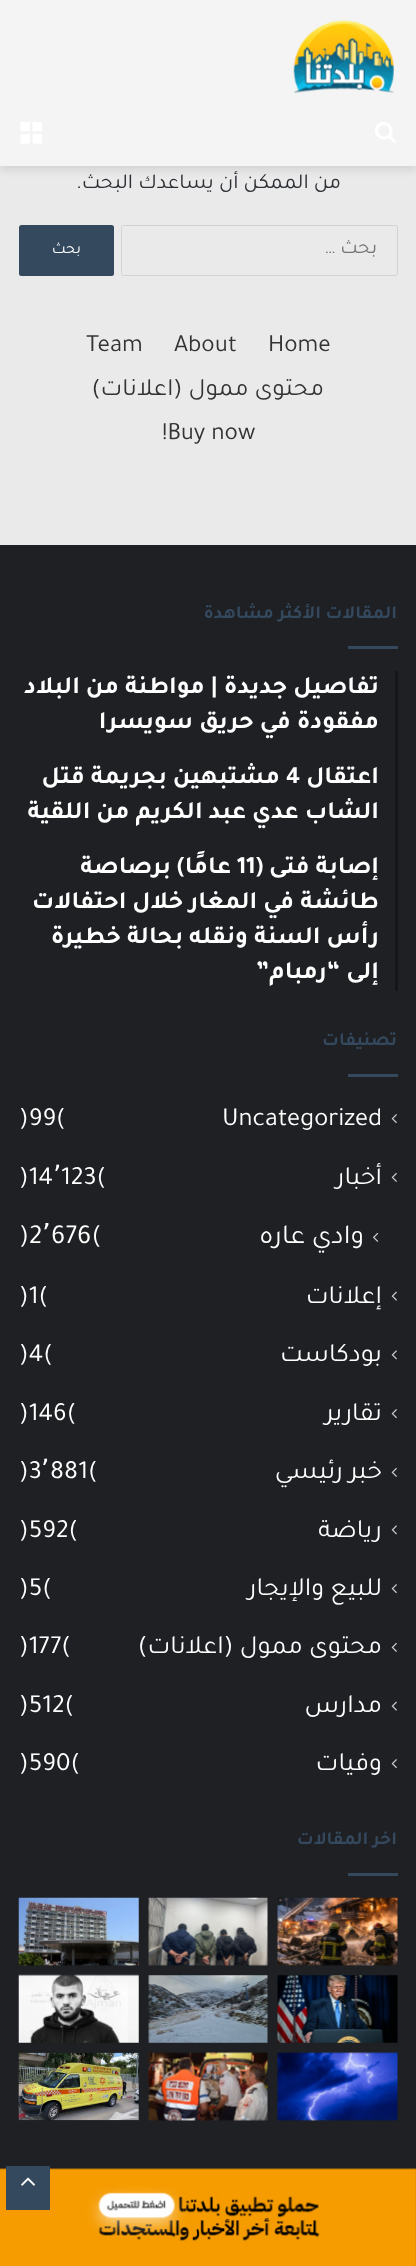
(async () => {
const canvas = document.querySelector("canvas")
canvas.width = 416
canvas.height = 2266
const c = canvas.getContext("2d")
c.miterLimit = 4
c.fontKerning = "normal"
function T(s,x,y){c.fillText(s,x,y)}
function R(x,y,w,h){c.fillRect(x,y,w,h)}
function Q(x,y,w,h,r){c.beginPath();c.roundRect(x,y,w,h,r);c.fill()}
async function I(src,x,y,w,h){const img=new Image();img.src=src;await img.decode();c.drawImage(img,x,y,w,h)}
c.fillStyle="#eaeaea"
R(0,0,416,2266)
c.fillStyle="#0000001a"
c.filter="blur(4.5px)"
c.beginPath()
c.rect(0,4,416,166)
c.fill()
c.filter="none"
c.fillStyle="#f4f4f4"
R(0,0,416,166)
await I("1.png",293,20,101,73)
await I("2.png",375,122,21,21)
await I("3.png",20,122,22,22)
c.direction="rtl"
c.font="21.25px Tajawal"
c.fillStyle="#2c2f34"
T("من الممكن أن يساعدك البحث.",341,188)
c.beginPath()
c.roundRect(121.5,225.5,276,50,2)
c.strokeStyle="#d3d3d3"
c.stroke()
c.font="20px Tajawal"
c.fillStyle="#757575"
T("بحث …",377,253)
c.fillStyle="#34495e"
Q(19,225,95,51,2.5)
c.font="16px Tajawal"
c.fillStyle="#fff"
T("بحث",81,253)
c.direction="ltr"
c.font="25px Tajawal"
c.fillStyle="#333"
T("Home",268,351)
T("About",174,351)
T("Team",86,351)
c.direction="rtl"
T("محتوى ممول (اعلانات)",324,395)
c.direction="ltr"
T("!Buy now",162,439)
c.fillStyle="#1f2024"
R(0,545,416,1721)
c.direction="rtl"
c.font="bold 18.75px Tajawal"
c.fillStyle="#34495e"
T("المقالات الأكثر مشاهدة",397,618)
R(348,646,50,3)
c.fillStyle="#161619"
R(395,671,3,320)
c.font="bold 25px Tajawal"
c.fillStyle="#fff"
T("تفاصيل جديدة | مواطنة من البلاد",379,693)
T("مفقودة في حريق سويسرا",379,728)
T("اعتقال",379,783)
c.direction="ltr"
T("4",286,783)
c.direction="rtl"
T("مشتبهين بجريمة قتل",280,783)
T("الشاب عدي عبد الكريم من اللقية",379,818)
T("إصابة فتى (",379,873)
c.direction="ltr"
T("11",237,873)
c.direction="rtl"
T("عامًا) برصاصة",231,873)
T("طائشة في المغار خلال احتفالات",379,908)
T("رأس السنة ونقله بحالة خطيرة",379,943)
T("إلى “رمبام”",379,978)
c.font="bold 18.75px Tajawal"
c.fillStyle="#34495e"
T("تصنيفات",397,1045)
R(348,1074,50,3)
await I("4.png",391,1114,6,10)
c.direction="ltr"
c.font="26.25px Tajawal"
c.fillStyle="#fff"
T("Uncategorized",222,1125)
T(")99(",19,1125)
await I("5.png",391,1172,6,10)
c.direction="rtl"
T("أخبار",382,1184)
c.direction="ltr"
T("123(",61,1184)
c.font="26.25px DejaVu Sans"
T("٬",53,1184)
c.font="26.25px Tajawal"
T(")14",19,1184)
await I("6.png",372,1232,7,10)
c.direction="rtl"
c.font="27.5px Tajawal"
T("وادي عاره",364,1243)
c.direction="ltr"
T("676(",51,1243)
c.font="27.5px DejaVu Sans"
T("٬",42,1243)
c.font="27.5px Tajawal"
T(")2",19,1243)
await I("7.png",391,1291,6,10)
c.direction="rtl"
c.font="26.25px Tajawal"
T("إعلانات",382,1303)
c.direction="ltr"
T(")1(",19,1303)
await I("8.png",391,1350,6,10)
c.direction="rtl"
T("بودكاست",382,1361)
c.direction="ltr"
T(")4(",19,1361)
await I("4.png",391,1409,6,10)
c.direction="rtl"
T("تقارير",382,1420)
c.direction="ltr"
T(")146(",19,1420)
await I("5.png",391,1467,6,10)
c.direction="rtl"
T("خبر رئيسي",382,1478)
c.direction="ltr"
T("881(",50,1478)
c.font="26.25px DejaVu Sans"
T("٬",41,1478)
c.font="26.25px Tajawal"
T(")3",19,1478)
await I("8.png",391,1525,6,10)
c.direction="rtl"
T("رياضة",382,1537)
c.direction="ltr"
T(")592(",19,1537)
await I("4.png",391,1584,6,10)
c.direction="rtl"
T("للبيع والإيجار",382,1595)
c.direction="ltr"
T(")5(",19,1595)
await I("5.png",391,1642,6,10)
c.direction="rtl"
T("محتوى ممول (اعلانات)",382,1653)
c.direction="ltr"
T(")177(",19,1653)
await I("7.png",391,1701,6,10)
c.direction="rtl"
T("مدارس",382,1712)
c.direction="ltr"
T(")512(",19,1712)
await I("4.png",391,1759,6,10)
c.direction="rtl"
T("وفيات",382,1770)
c.direction="ltr"
T(")590(",19,1770)
c.direction="rtl"
c.font="bold 18.75px Tajawal"
c.fillStyle="#34495e"
T("اخر المقالات",397,1844)
R(348,1873,50,3)
await I("9.png",277,1897,121,69)
await I("10.png",148,1897,120,69)
await I("11.png",18,1897,121,69)
await I("12.png",277,1975,121,68)
await I("13.png",148,1975,120,68)
await I("14.png",18,1974,121,69)
await I("15.png",277,2052,121,69)
await I("16.png",148,2052,120,69)
await I("17.png",18,2052,121,69)
await I("19.png",0,2168,416,98)
R(6,2166,44,44)
await I("18.png",21,2177,14,9)
})()
